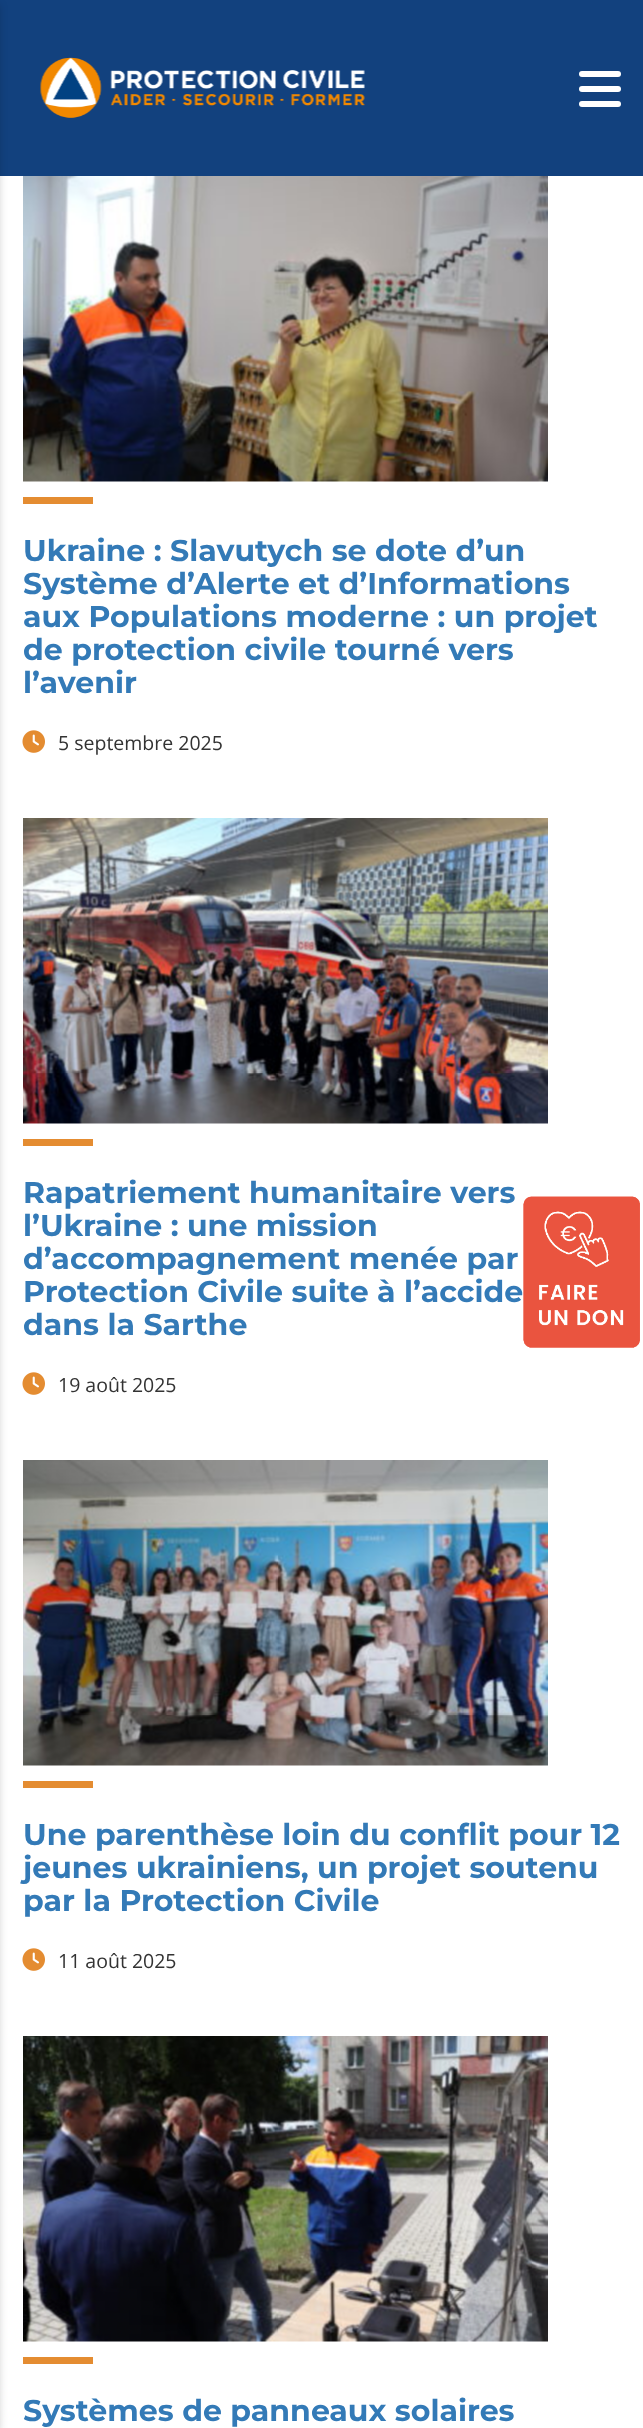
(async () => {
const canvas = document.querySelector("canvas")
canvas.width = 643
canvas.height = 2428
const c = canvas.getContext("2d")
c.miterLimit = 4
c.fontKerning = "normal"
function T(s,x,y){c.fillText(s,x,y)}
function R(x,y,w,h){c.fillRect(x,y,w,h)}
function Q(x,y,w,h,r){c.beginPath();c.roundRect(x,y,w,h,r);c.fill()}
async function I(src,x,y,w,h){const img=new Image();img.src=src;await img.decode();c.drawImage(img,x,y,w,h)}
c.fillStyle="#fff"
R(0,0,643,2428)
c.fillStyle="#12417e"
R(0,0,643,176)
await I("1.png",40,57,325,61)
c.fillStyle="#fff"
Q(579,71,42,6,3)
Q(579,86,42,6,3)
Q(579,101,42,6,3)
c.fillStyle="#00000033"
c.filter="blur(4px)"
c.beginPath()
c.rect(-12,5,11,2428)
c.fill()
c.filter="none"
await I("2.png",23,176,525,306)
c.fillStyle="#e48c31"
R(23,497,70,7)
c.font="bold 30px Montserrat"
c.fillStyle="#337ab7"
T("Ukraine : Slavutych se dote d’un",23,561)
T("Système d’Alerte et d’Informations",23,594)
T("aux Populations moderne : un projet",23,627)
T("de protection civile tourné vers",23,660)
T("l’avenir",23,693)
await I("3.png",22,730,23,23)
c.font="19.5px Open Sans"
c.fillStyle="#333"
T("5 septembre 2025",58,750)
await I("4.png",23,818,525,306)
c.fillStyle="#e48c31"
R(23,1139,70,7)
c.font="bold 30px Montserrat"
c.fillStyle="#337ab7"
T("Rapatriement humanitaire vers",23,1203)
T("l’Ukraine : une mission",23,1236)
T("d’accompagnement menée par",23,1269)
T("Protection Civile suite à l’accide",23,1302)
T("dans la Sarthe",23,1335)
await I("3.png",22,1372,23,23)
c.font="19.5px Open Sans"
c.fillStyle="#333"
T("19 août 2025",58,1392)
await I("5.png",23,1460,525,306)
c.fillStyle="#e48c31"
R(23,1781,70,7)
c.font="bold 30px Montserrat"
c.fillStyle="#337ab7"
T("Une parenthèse loin du conflit pour 12",23,1845)
T("jeunes ukrainiens, un projet soutenu",23,1878)
T("par la Protection Civile",23,1911)
await I("3.png",22,1948,23,23)
c.font="19.5px Open Sans"
c.fillStyle="#333"
T("11 août 2025",58,1968)
await I("6.png",23,2036,525,306)
c.fillStyle="#e48c31"
R(23,2357,70,7)
c.font="bold 30px Montserrat"
c.fillStyle="#337ab7"
T("Systèmes de panneaux solaires",23,2421)
await I("7.png",523,1196,117,152)
})()
